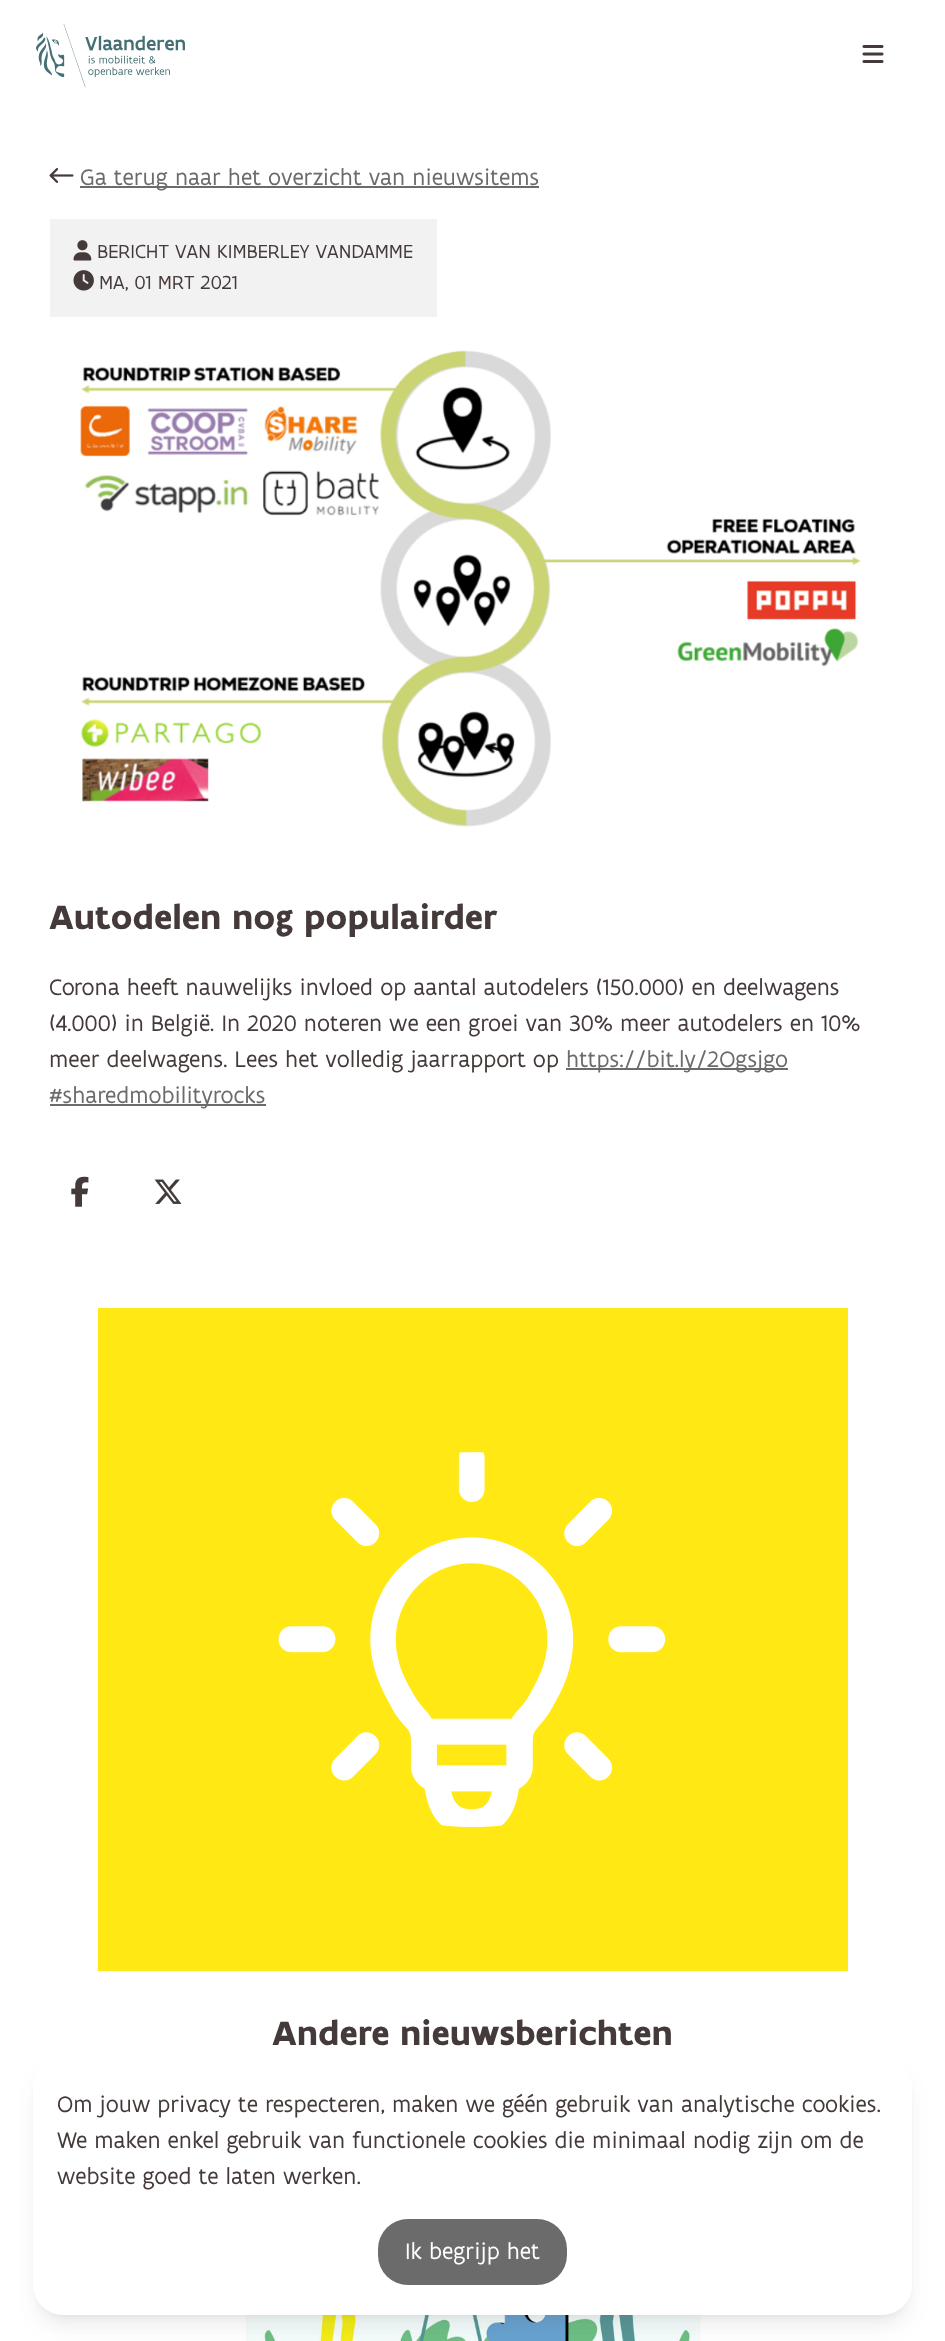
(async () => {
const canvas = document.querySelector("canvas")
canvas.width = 945
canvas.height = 2341
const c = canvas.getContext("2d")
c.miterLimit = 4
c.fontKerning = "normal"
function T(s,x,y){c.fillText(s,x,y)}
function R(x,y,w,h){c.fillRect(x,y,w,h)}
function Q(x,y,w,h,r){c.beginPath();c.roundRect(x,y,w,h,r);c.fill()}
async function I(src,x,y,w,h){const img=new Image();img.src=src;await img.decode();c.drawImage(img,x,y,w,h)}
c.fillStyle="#fff"
R(0,0,945,2341)
await I("1.png",36,24,149,64)
await I("2.png",862,45,22,18)
await I("3.png",49,168,25,15)
c.fillStyle="#6b6b6b"
R(80,186,459,2)
c.font="24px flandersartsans"
T("Ga terug naar het overzicht van nieuwsitems",80,185)
c.fillStyle="#f2f2f2"
R(50,219,387,98)
await I("4.png",73,240,19,21)
c.font="20.4px flandersartsans"
c.fillStyle="#453a3a"
T("BERICHT VAN KIMBERLEY VANDAMME",97,258)
await I("5.png",73,270,21,21)
T("MA, 01 MRT 2021",99,289)
await I("6.png",80,350,781,477)
c.font="bold 36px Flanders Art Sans"
T("Autodelen nog populairder",49,929)
c.font="24px flandersartsans"
T("Corona heeft nauwelijks invloed op aantal autodelers (150.000) en deelwagens",49,995)
T("(4.000) in België. In 2020 noteren we een groei van 30% meer autodelers en 10%",49,1031)
T("meer deelwagens. Lees het volledig jaarrapport op",49,1067)
c.fillStyle="#6b6b6b"
R(566,1068,222,2)
T("https://bit.ly/2Ogsjgo",566,1067)
R(50,1104,216,2)
T("#sharedmobilityrocks",49,1103)
await I("7.png",71,1176,18,31)
await I("8.png",154,1179,28,25)
c.fillStyle="#ffe814"
R(98,1308,750,663)
await I("9.png",278,1452,388,376)
c.font="bold 36px Flanders Art Sans"
c.fillStyle="#453a3a"
T("Andere nieuwsberichten",272,2045)
c.fillStyle="#453a3a1a"
c.filter="blur(2px)"
c.beginPath()
c.rect(248,2087,450,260)
c.fill()
c.filter="none"
c.fillStyle="#fff"
R(697,2315,1,26)
await I("10.png",248,2315,450,26)
c.fillStyle="#453a3a1a"
c.filter="blur(4.5px)"
c.beginPath()
c.roundRect(39,2069,867,246,24)
c.fill()
c.filter="none"
c.filter="blur(11px)"
c.beginPath()
c.roundRect(38,2076,870,249,26)
c.fill()
c.filter="none"
c.fillStyle="#fff"
Q(33,2057,879,258,30)
c.font="24px flandersartsans"
c.fillStyle="#453a3a"
T("Om jouw privacy te respecteren, maken we géén gebruik van analytische cookies.",57,2112)
T("We maken enkel gebruik van functionele cookies die minimaal nodig zijn om de",57,2148)
T("website goed te laten werken.",57,2184)
c.fillStyle="#6b6b6b"
Q(378,2219,189,66,30)
c.fillStyle="#fff"
T("Ik begrijp het",405,2259)
})()
